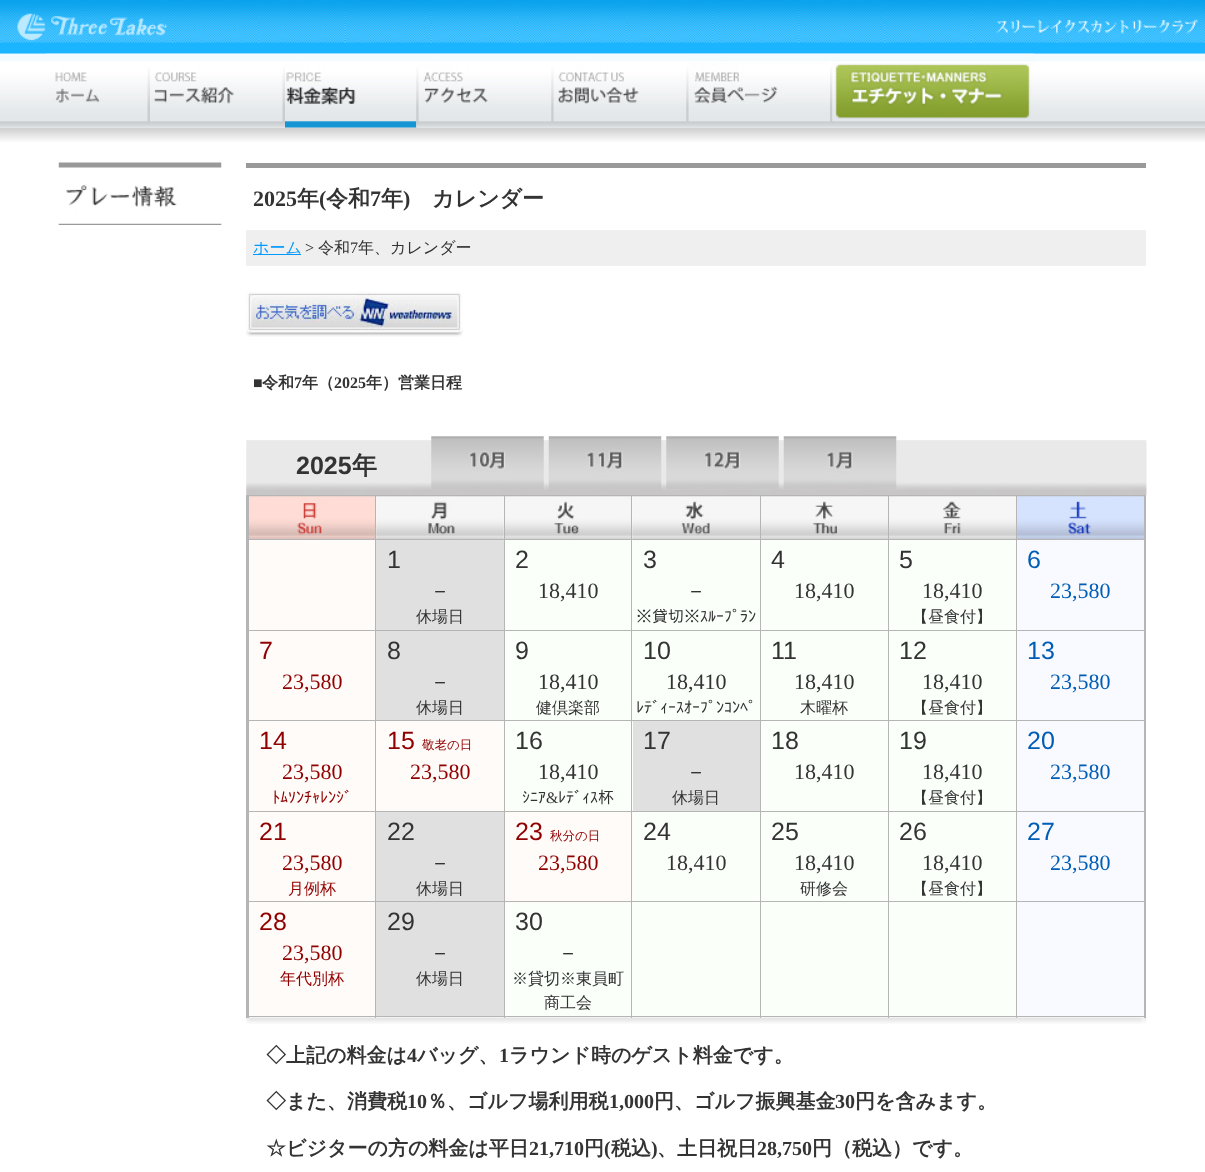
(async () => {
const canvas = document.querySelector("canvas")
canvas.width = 1205
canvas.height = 1172
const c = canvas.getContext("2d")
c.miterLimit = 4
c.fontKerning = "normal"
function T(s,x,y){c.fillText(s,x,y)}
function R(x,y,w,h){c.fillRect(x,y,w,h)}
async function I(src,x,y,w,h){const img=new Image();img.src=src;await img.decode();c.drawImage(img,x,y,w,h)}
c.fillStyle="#fff"
R(0,0,1205,1172)
await I("1.png",0,127,1205,15)
await I("2.png",0,0,540,54)
await I("3.png",17,13,150,28)
await I("4.png",540,0,665,54)
await I("5.png",996,19,203,15)
await I("6.png",0,53,1205,75)
await I("7.png",46,53,102,50)
await I("8.png",147,53,3,69)
await I("9.png",150,53,133,51)
await I("10.png",282,53,3,69)
await I("11.png",285,53,132,75)
await I("12.png",416,53,3,75)
await I("13.png",418,53,134,68)
await I("14.png",551,53,3,69)
await I("15.png",553,53,134,68)
await I("14.png",686,53,3,69)
await I("16.png",688,53,142,68)
await I("17.png",830,53,3,69)
await I("18.png",832,53,202,68)
await I("19.png",58,162,164,63)
c.fillStyle="#999"
R(246,163,900,5)
c.font="bold 22px Liberation Serif"
c.fillStyle="#333"
T("2025",253,206)
c.font="bold 22px WenQuanYi Zen Hei"
T("年",297,206)
c.font="bold 22px Liberation Serif"
T("(",319,206)
c.font="bold 22px WenQuanYi Zen Hei"
T("令和",326,206)
c.font="bold 22px Liberation Serif"
T("7",370,206)
c.font="bold 22px WenQuanYi Zen Hei"
T("年",381,206)
c.font="bold 22px Liberation Serif"
T(")",403,206)
c.font="bold 22px WenQuanYi Zen Hei"
T("カレンダー",432,206)
c.fillStyle="#efefef"
R(246,230,900,36)
c.fillStyle="#09f"
R(253,254,48,1)
c.font="500 16px WenQuanYi Zen Hei"
T("ホーム",253,253)
c.font="16px Liberation Serif"
c.fillStyle="#333"
T(">",305,253)
c.font="500 16px WenQuanYi Zen Hei"
T("令和",318,253)
c.font="16px Liberation Serif"
T("7",350,253)
c.font="500 16px WenQuanYi Zen Hei"
T("年、カレンダー",358,253)
await I("20.png",246,291,217,46)
c.font="bold 16px Liberation Serif"
T("■",253,388)
c.font="bold 16px WenQuanYi Zen Hei"
T("令和",262,388)
c.font="bold 16px Liberation Serif"
T("7",294,388)
c.font="bold 16px WenQuanYi Zen Hei"
T("年（",302,388)
c.font="bold 16px Liberation Serif"
T("2025",334,388)
c.font="bold 16px WenQuanYi Zen Hei"
T("年）営業日程",366,388)
await I("21.png",246,440,901,55)
c.font="bold 25px Liberation Sans"
T("2025",296,474)
c.font="bold 25px WenQuanYi Zen Hei"
T("年",352,474)
await I("22.png",1146,442,1,53)
await I("23.png",431,436,113,54)
await I("24.png",548,436,114,54)
await I("25.png",666,436,113,53)
await I("26.png",783,436,114,53)
await I("27.png",246,1017,901,7)
c.fillStyle="#b5b5b5"
R(1016,495,130,1)
R(1016,539,130,1)
R(1016,630,130,1)
R(1016,720,130,1)
R(1016,811,130,1)
c.fillStyle="#f9faff"
R(1017,812,127,204)
c.fillStyle="#b5b5b5"
R(1016,901,130,1)
R(1016,1016,130,1)
R(1144,495,2,523)
c.fillStyle="#fafffa"
R(889,812,127,204)
c.fillStyle="#b5b5b5"
R(1016,901,1,117)
R(888,901,130,1)
R(1016,811,1,92)
R(888,811,130,1)
R(1016,720,1,93)
R(888,720,130,1)
R(1016,630,1,91)
R(888,630,130,1)
R(1016,539,1,92)
R(888,539,130,1)
R(1016,495,1,45)
R(888,495,130,1)
c.fillStyle="#fafffa"
R(761,812,127,204)
c.fillStyle="#b5b5b5"
R(888,1016,130,1)
R(888,901,1,117)
R(760,901,129,1)
R(888,811,1,92)
R(760,811,129,1)
R(888,720,1,93)
R(760,720,129,1)
R(888,630,1,91)
R(760,630,129,1)
R(888,539,1,92)
R(760,539,129,1)
R(888,495,1,45)
R(760,495,129,1)
c.fillStyle="#fffbf8"
R(505,812,128,91)
c.fillStyle="#fafffa"
R(633,812,127,91)
c.fillStyle="#b5b5b5"
R(760,1016,129,1)
R(760,901,1,117)
R(631,901,130,1)
R(760,811,1,92)
R(631,811,130,1)
R(760,720,1,93)
R(631,720,130,1)
R(760,630,1,91)
R(631,630,130,1)
R(760,539,1,92)
R(631,539,130,1)
R(760,495,1,45)
R(631,495,130,1)
await I("30.png",505,496,128,43)
c.fillStyle="#fafffa"
R(505,540,255,90)
R(505,631,255,89)
R(505,721,128,90)
R(505,903,255,113)
c.fillStyle="#b5b5b5"
R(631,1016,130,1)
R(631,901,1,117)
R(504,901,129,1)
R(631,811,1,92)
R(504,811,129,1)
R(631,720,1,93)
R(504,720,129,1)
R(631,630,1,91)
R(504,630,129,1)
R(631,539,1,92)
R(504,539,129,1)
R(631,495,1,45)
R(504,495,129,1)
c.fillStyle="#e0e0e0"
R(376,812,128,204)
c.fillStyle="#b5b5b5"
R(504,1016,129,1)
R(504,901,1,117)
R(375,901,130,1)
R(504,811,1,92)
R(375,811,130,1)
R(504,720,1,93)
R(375,720,130,1)
R(504,630,1,91)
R(375,630,130,1)
R(504,539,1,92)
R(375,539,130,1)
R(504,495,1,45)
R(375,495,130,1)
await I("28.png",249,496,128,43)
c.fillStyle="#fffbf8"
R(249,812,126,204)
c.fillStyle="#b5b5b5"
R(375,1016,130,1)
R(375,901,1,117)
R(248,901,128,1)
R(375,811,1,92)
R(248,811,128,1)
R(375,720,1,93)
R(248,720,128,1)
R(375,630,1,91)
R(248,630,128,1)
R(375,539,1,92)
R(248,539,128,1)
R(375,495,1,45)
R(248,495,128,1)
R(248,1016,128,1)
R(246,495,3,523)
await I("29.png",376,496,128,43)
await I("31.png",632,496,128,43)
await I("32.png",761,496,127,43)
await I("33.png",889,496,127,43)
await I("34.png",1017,496,127,43)
c.fillStyle="#fffbf8"
R(249,540,126,90)
c.fillStyle="#e0e0e0"
R(376,540,128,90)
c.font="25px Liberation Sans"
c.fillStyle="#333"
T("1",387,568)
c.font="500 22px WenQuanYi Zen Hei"
T("－",429,598)
c.font="500 16px WenQuanYi Zen Hei"
T("休場日",416,622)
c.font="25px Liberation Sans"
T("2",515,568)
c.font="22px Liberation Serif"
T("18,410",538,598)
c.font="25px Liberation Sans"
T("3",643,568)
c.font="500 22px WenQuanYi Zen Hei"
T("－",685,598)
c.font="16px IPAGothic"
T("※貸切※ｽﾙｰﾌﾟﾗﾝ",636,622)
c.fillStyle="#fafffa"
R(761,540,127,90)
c.font="25px Liberation Sans"
c.fillStyle="#333"
T("4",771,568)
c.font="22px Liberation Serif"
T("18,410",794,598)
c.fillStyle="#fafffa"
R(889,540,127,90)
c.font="25px Liberation Sans"
c.fillStyle="#333"
T("5",899,568)
c.font="22px Liberation Serif"
T("18,410",922,598)
c.font="500 16px WenQuanYi Zen Hei"
T("【昼食付】",912,622)
c.fillStyle="#f9faff"
R(1017,540,127,90)
c.font="25px Liberation Sans"
c.fillStyle="#005db6"
T("6",1027,568)
c.font="22px Liberation Serif"
T("23,580",1050,598)
c.fillStyle="#fffbf8"
R(249,631,126,89)
c.font="25px Liberation Sans"
c.fillStyle="#900000"
T("7",259,659)
c.font="22px Liberation Serif"
T("23,580",282,689)
c.fillStyle="#e0e0e0"
R(376,631,128,89)
c.font="25px Liberation Sans"
c.fillStyle="#333"
T("8",387,659)
c.font="500 22px WenQuanYi Zen Hei"
T("－",429,689)
c.font="500 16px WenQuanYi Zen Hei"
T("休場日",416,713)
c.font="25px Liberation Sans"
T("9",515,659)
c.font="22px Liberation Serif"
T("18,410",538,689)
c.font="500 16px WenQuanYi Zen Hei"
T("健倶楽部",536,713)
c.font="25px Liberation Sans"
T("10",643,659)
c.font="22px Liberation Serif"
T("18,410",666,689)
c.font="16px IPAGothic"
T("ﾚﾃﾞｨｰｽｵｰﾌﾟﾝｺﾝﾍﾟ",636,713)
c.fillStyle="#fafffa"
R(761,631,127,89)
c.font="25px Liberation Sans"
c.fillStyle="#333"
T("11",771,659)
c.font="22px Liberation Serif"
T("18,410",794,689)
c.font="500 16px WenQuanYi Zen Hei"
T("木曜杯",800,713)
c.fillStyle="#fafffa"
R(889,631,127,89)
c.font="25px Liberation Sans"
c.fillStyle="#333"
T("12",899,659)
c.font="22px Liberation Serif"
T("18,410",922,689)
c.font="500 16px WenQuanYi Zen Hei"
T("【昼食付】",912,713)
c.fillStyle="#f9faff"
R(1017,631,127,89)
c.font="25px Liberation Sans"
c.fillStyle="#005db6"
T("13",1027,659)
c.font="22px Liberation Serif"
T("23,580",1050,689)
c.fillStyle="#fffbf8"
R(249,721,126,90)
c.font="25px Liberation Sans"
c.fillStyle="#900000"
T("14",259,749)
c.font="22px Liberation Serif"
T("23,580",282,779)
c.font="16px IPAGothic"
T("ﾄﾑｿﾝﾁｬﾚﾝｼﾞ",272,803)
c.fillStyle="#fffbf8"
R(376,721,128,90)
c.font="25px Liberation Sans"
c.fillStyle="#900000"
T("15",387,749)
c.font="500 12.5px WenQuanYi Zen Hei"
T("敬老の日",422,749)
c.font="22px Liberation Serif"
T("23,580",410,779)
c.font="25px Liberation Sans"
c.fillStyle="#333"
T("16",515,749)
c.font="22px Liberation Serif"
T("18,410",538,779)
c.font="16px IPAGothic"
T("ｼﾆｱ",522,803)
c.font="16px Liberation Serif"
T("&",546,803)
c.font="16px IPAGothic"
T("ﾚﾃﾞｨｽ杯",558,803)
c.fillStyle="#e0e0e0"
R(633,721,127,90)
c.font="25px Liberation Sans"
c.fillStyle="#333"
T("17",643,749)
c.font="500 22px WenQuanYi Zen Hei"
T("－",685,779)
c.font="500 16px WenQuanYi Zen Hei"
T("休場日",672,803)
c.fillStyle="#fafffa"
R(761,721,127,90)
c.font="25px Liberation Sans"
c.fillStyle="#333"
T("18",771,749)
c.font="22px Liberation Serif"
T("18,410",794,779)
c.fillStyle="#fafffa"
R(889,721,127,90)
c.font="25px Liberation Sans"
c.fillStyle="#333"
T("19",899,749)
c.font="22px Liberation Serif"
T("18,410",922,779)
c.font="500 16px WenQuanYi Zen Hei"
T("【昼食付】",912,803)
c.fillStyle="#f9faff"
R(1017,721,127,90)
c.font="25px Liberation Sans"
c.fillStyle="#005db6"
T("20",1027,749)
c.font="22px Liberation Serif"
T("23,580",1050,779)
c.font="25px Liberation Sans"
c.fillStyle="#900000"
T("21",259,840)
c.font="22px Liberation Serif"
T("23,580",282,870)
c.font="500 16px WenQuanYi Zen Hei"
T("月例杯",288,894)
c.font="25px Liberation Sans"
c.fillStyle="#333"
T("22",387,840)
c.font="500 22px WenQuanYi Zen Hei"
T("－",429,870)
c.font="500 16px WenQuanYi Zen Hei"
T("休場日",416,894)
c.font="25px Liberation Sans"
c.fillStyle="#900000"
T("23",515,840)
c.font="500 12.5px WenQuanYi Zen Hei"
T("秋分の日",550,840)
c.font="22px Liberation Serif"
T("23,580",538,870)
c.font="25px Liberation Sans"
c.fillStyle="#333"
T("24",643,840)
c.font="22px Liberation Serif"
T("18,410",666,870)
c.font="25px Liberation Sans"
T("25",771,840)
c.font="22px Liberation Serif"
T("18,410",794,870)
c.font="500 16px WenQuanYi Zen Hei"
T("研修会",800,894)
c.font="25px Liberation Sans"
T("26",899,840)
c.font="22px Liberation Serif"
T("18,410",922,870)
c.font="500 16px WenQuanYi Zen Hei"
T("【昼食付】",912,894)
c.font="25px Liberation Sans"
c.fillStyle="#005db6"
T("27",1027,840)
c.font="22px Liberation Serif"
T("23,580",1050,870)
c.font="25px Liberation Sans"
c.fillStyle="#900000"
T("28",259,930)
c.font="22px Liberation Serif"
T("23,580",282,960)
c.font="500 16px WenQuanYi Zen Hei"
T("年代別杯",280,984)
c.font="25px Liberation Sans"
c.fillStyle="#333"
T("29",387,930)
c.font="500 22px WenQuanYi Zen Hei"
T("－",429,960)
c.font="500 16px WenQuanYi Zen Hei"
T("休場日",416,984)
c.font="25px Liberation Sans"
T("30",515,930)
c.font="500 22px WenQuanYi Zen Hei"
T("－",557,960)
c.font="500 16px WenQuanYi Zen Hei"
T("※貸切※東員町",512,984)
T("商工会",544,1008)
c.font="bold 20px WenQuanYi Zen Hei"
T("◇上記の料金は",266,1062)
c.font="bold 20px Liberation Serif"
T("4",407,1062)
c.font="bold 20px WenQuanYi Zen Hei"
T("バッグ、",417,1062)
c.font="bold 20px Liberation Serif"
T("1",499,1062)
c.font="bold 20px WenQuanYi Zen Hei"
T("ラウンド時のゲスト料金です。",509,1062)
T("◇また、消費税",266,1108)
c.font="bold 20px Liberation Serif"
T("10",407,1108)
c.font="bold 20px WenQuanYi Zen Hei"
T("％、ゴルフ場利用税",427,1108)
c.font="bold 20px Liberation Serif"
T("1,000",609,1108)
c.font="bold 20px WenQuanYi Zen Hei"
T("円、ゴルフ振興基金",654,1108)
c.font="bold 20px Liberation Serif"
T("30",835,1108)
c.font="bold 20px WenQuanYi Zen Hei"
T("円を含みます。",855,1108)
T("☆ビジターの方の料金は平日",266,1155)
c.font="bold 20px Liberation Serif"
T("21,710",529,1155)
c.font="bold 20px WenQuanYi Zen Hei"
T("円",584,1155)
c.font="bold 20px Liberation Serif"
T("(",604,1155)
c.font="bold 20px WenQuanYi Zen Hei"
T("税込",611,1155)
c.font="bold 20px Liberation Serif"
T(")",651,1155)
c.font="bold 20px WenQuanYi Zen Hei"
T("、土日祝日",657,1155)
c.font="bold 20px Liberation Serif"
T("28,750",757,1155)
c.font="bold 20px WenQuanYi Zen Hei"
T("円（税込）です。",812,1155)
})()
